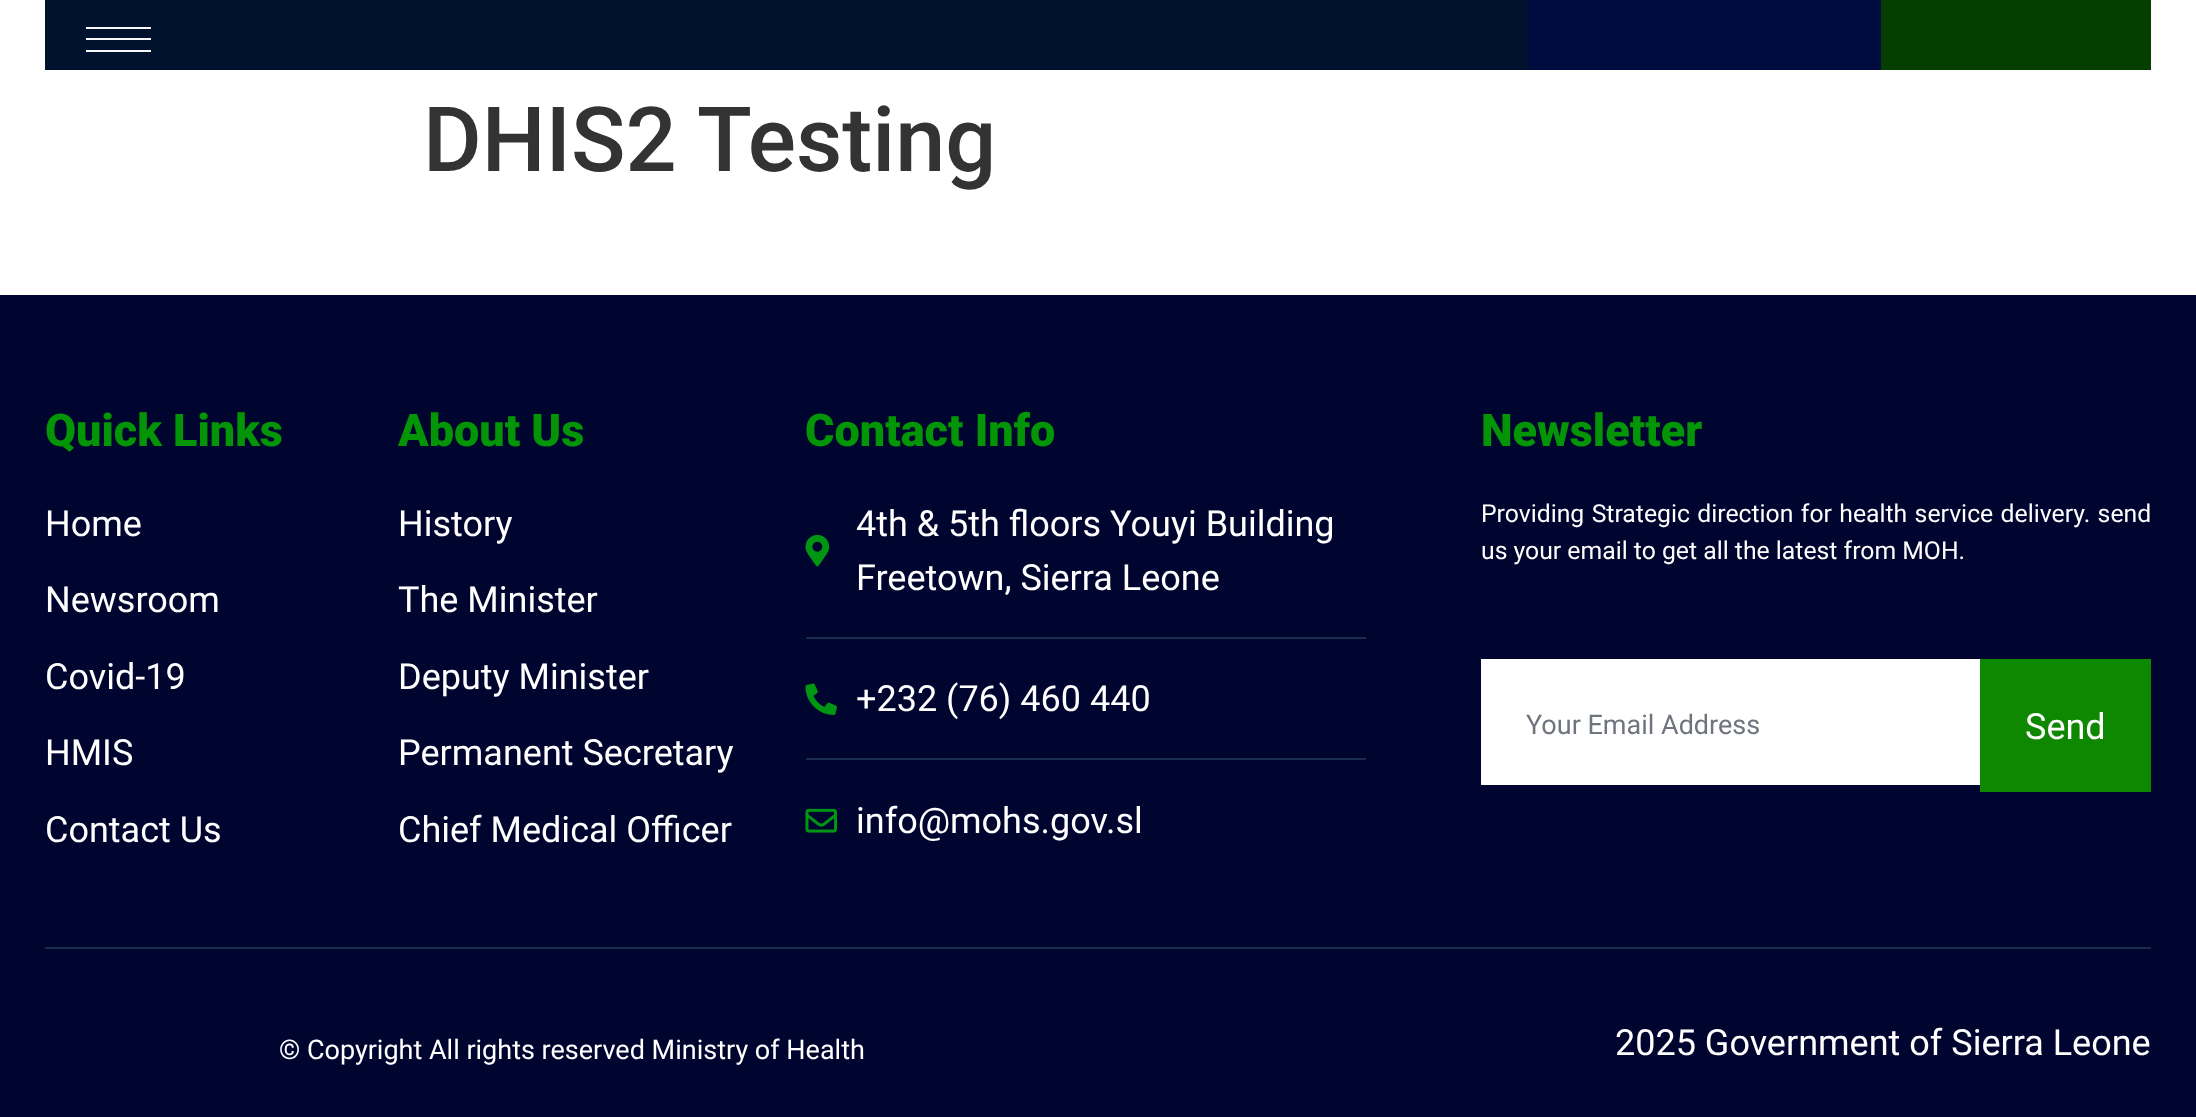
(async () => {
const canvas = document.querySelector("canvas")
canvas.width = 2196
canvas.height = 1117
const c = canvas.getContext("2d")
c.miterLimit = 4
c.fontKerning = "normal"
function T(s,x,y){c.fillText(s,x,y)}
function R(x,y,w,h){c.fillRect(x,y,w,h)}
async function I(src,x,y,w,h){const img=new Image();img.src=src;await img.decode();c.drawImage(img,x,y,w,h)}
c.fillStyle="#fff"
R(0,0,2196,1117)
c.fillStyle="#01122f"
R(45,0,1483,70)
c.fillStyle="#f8f9fa"
R(86,27,65,2)
R(86,38,65,2)
R(86,50,65,2)
c.fillStyle="#000b3f"
R(1528,0,353,70)
c.fillStyle="#053f00"
R(1881,0,270,70)
c.font="500 90px Roboto"
c.fillStyle="#333"
T("DHIS2 Testing",423,171)
c.fillStyle="#00052f"
R(0,295,2196,822)
c.font="900 45px Roboto"
c.fillStyle="#039506"
T("Quick Links",45,446)
c.font="36px Roboto"
c.fillStyle="#fff"
T("Home",45,536)
T("Newsroom",45,612)
T("Covid-19",45,689)
T("HMIS",45,765)
T("Contact Us",45,842)
c.font="900 45px Roboto"
c.fillStyle="#039506"
T("About Us",398,446)
c.font="36px Roboto"
c.fillStyle="#fff"
T("History",398,536)
T("The Minister",398,612)
T("Deputy Minister",398,689)
T("Permanent Secretary",398,765)
T("Chief Medical Officer",398,842)
c.font="900 45px Roboto"
c.fillStyle="#039506"
T("Contact Info",805,446)
await I("1.png",805,534,25,33)
c.font="36px Roboto"
c.fillStyle="#fff"
T("4th & 5th floors Youyi Building",856,536)
T("Freetown, Sierra Leone",856,590)
c.fillStyle="#192d4f"
R(806,637,560,2)
await I("2.png",805,683,32,32)
c.fillStyle="#fff"
T("+232 (76) 460 440",856,711)
c.fillStyle="#192d4f"
R(806,758,560,2)
await I("3.png",805,808,32,25)
c.fillStyle="#fff"
T("info@mohs.gov.sl",856,833)
c.font="900 45px Roboto"
c.fillStyle="#039506"
T("Newsletter",1481,446)
c.wordSpacing="1.25px"
c.font="24.75px Roboto"
c.fillStyle="#fff"
T("Providing Strategic direction for health service delivery. send",1481,522)
c.wordSpacing="0px"
T("us your email to get all the latest from MOH.",1481,559)
R(1481,659,499,126)
c.font="27px Roboto"
c.fillStyle="#6f747e"
T("Your Email Address",1526,734)
c.fillStyle="#0e8801"
R(1980,659,171,133)
c.font="36px Roboto"
c.fillStyle="#fff"
T("Send",2025,739)
c.fillStyle="#192d4f"
R(45,947,2106,2)
c.font="27px Roboto"
c.fillStyle="#fff"
T("© Copyright All rights reserved Ministry of Health",279,1059)
c.font="36px Roboto"
T("2025 Government of Sierra Leone",1615,1055)
})()
